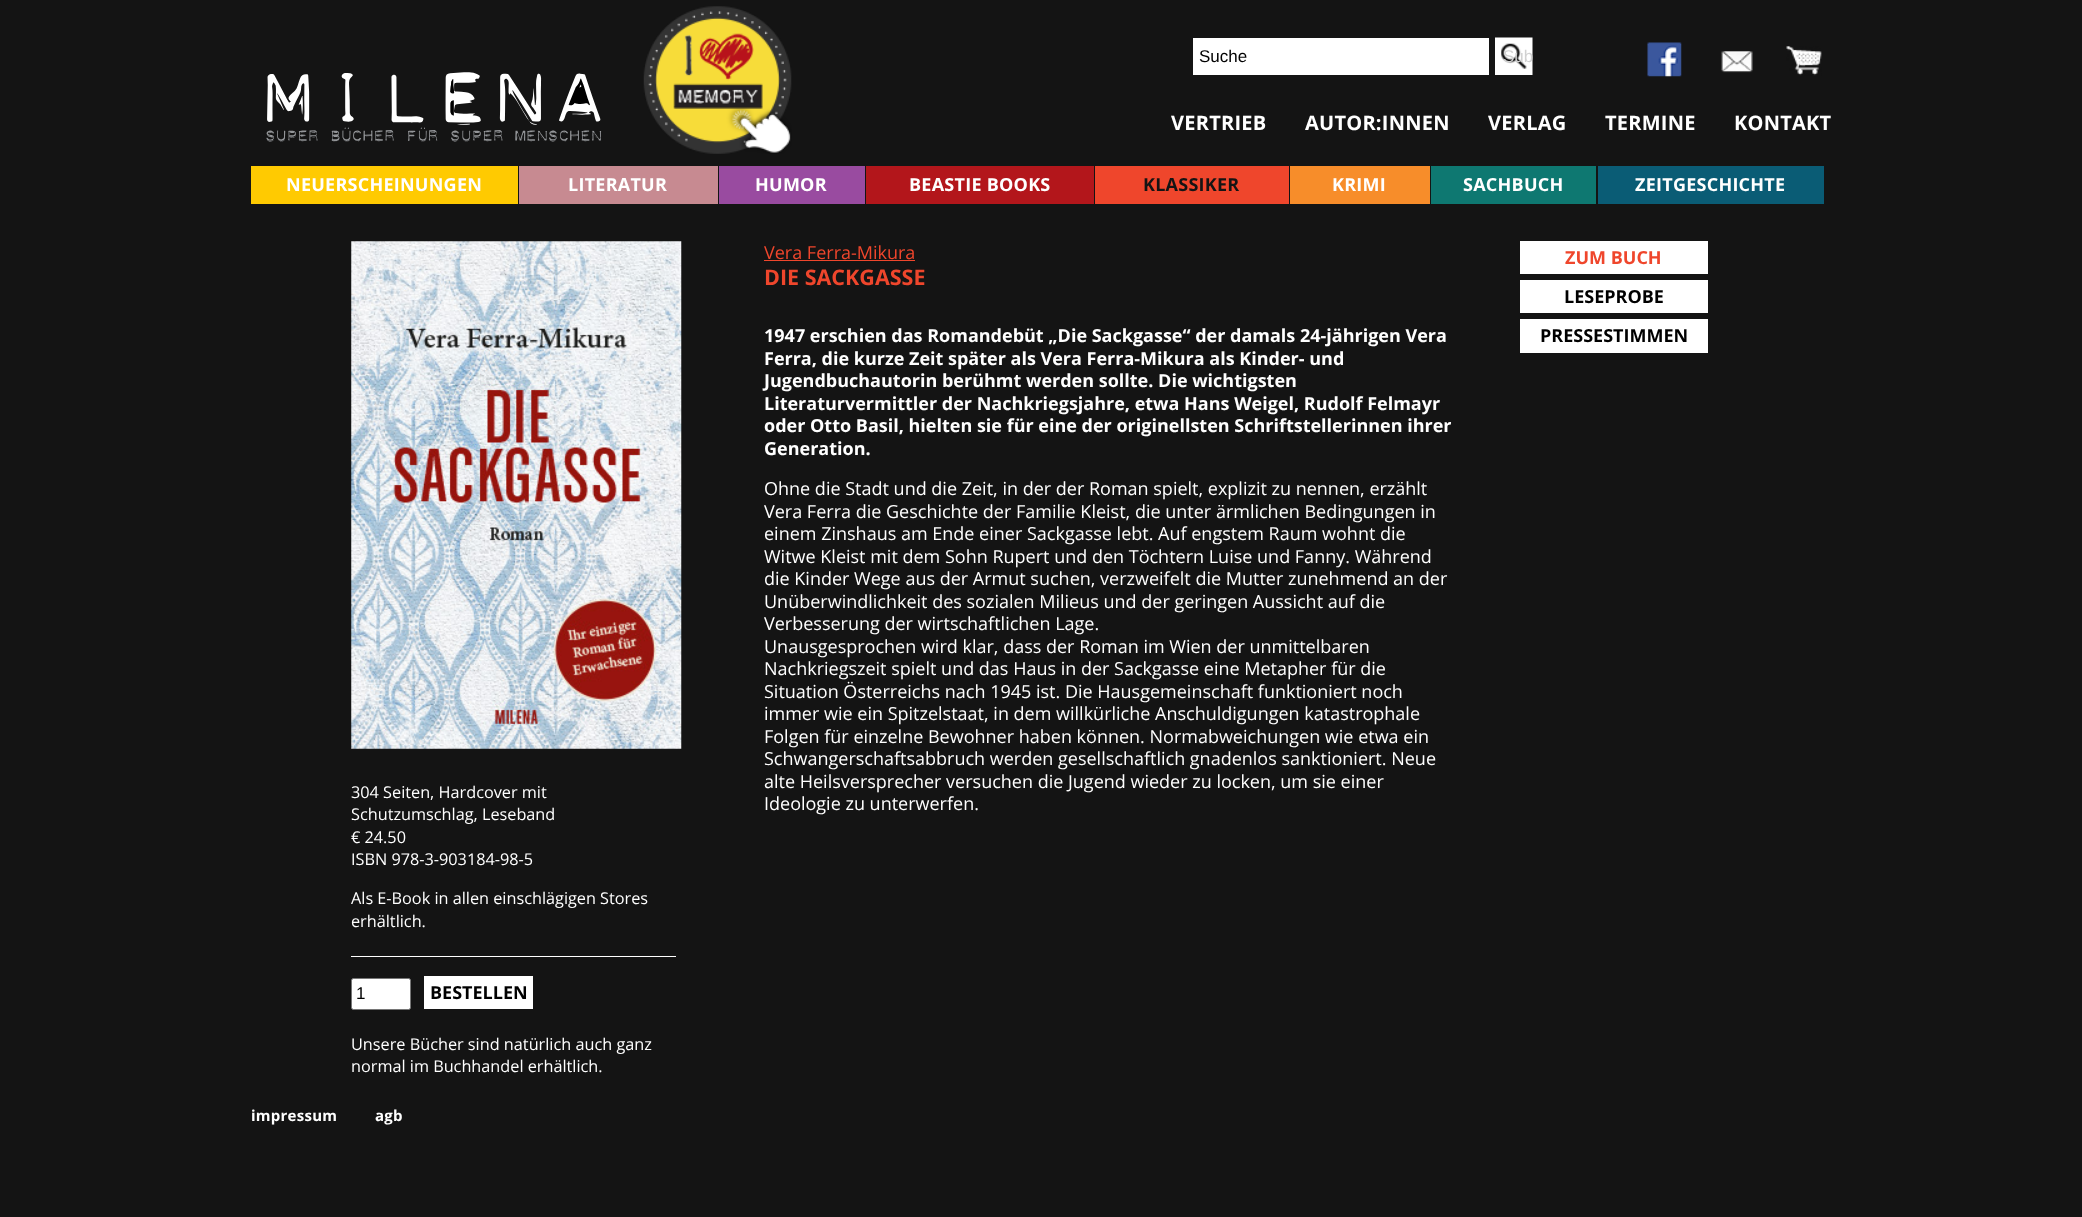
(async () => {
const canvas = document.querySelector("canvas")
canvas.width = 2082
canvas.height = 1217
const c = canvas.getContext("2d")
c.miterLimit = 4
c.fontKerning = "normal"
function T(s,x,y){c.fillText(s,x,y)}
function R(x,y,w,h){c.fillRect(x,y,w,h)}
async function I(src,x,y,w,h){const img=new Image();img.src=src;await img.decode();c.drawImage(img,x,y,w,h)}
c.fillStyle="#141414"
R(0,0,2082,1217)
await I("1.png",266,72,336,70)
await I("2.png",643,6,149,148)
c.fillStyle="#fff"
R(1193,38,296,37)
c.font="17px Liberation Sans"
c.fillStyle="#000"
T("Suche",1199,62)
await I("3.png",1495,37,38,38)
c.fillStyle="#d1d1d1"
T("Sub",1503,62)
await I("4.png",1647,42,35,35)
await I("5.png",1721,51,32,22)
await I("6.png",1786,46,36,30)
c.letterSpacing="0.25px"
c.font="bold 20px Open Sans"
c.fillStyle="#fff"
T("VERTRIEB",1171,130)
T("AUTOR:INNEN",1305,130)
T("VERLAG",1488,130)
T("TERMINE",1605,130)
T("KONTAKT",1734,130)
c.fillStyle="#ffca01"
R(251,166,267,38)
c.font="bold 18px Open Sans"
c.fillStyle="#fff"
T("NEUERSCHEINUNGEN",286,191)
c.fillStyle="#c78a91"
R(519,166,199,38)
c.fillStyle="#fff"
T("LITERATUR",568,191)
c.fillStyle="#994ba0"
R(719,166,146,38)
c.fillStyle="#fff"
T("HUMOR",755,191)
c.fillStyle="#b3161b"
R(866,166,228,38)
c.fillStyle="#fff"
T("BEASTIE BOOKS",909,191)
c.fillStyle="#ef462c"
R(1095,166,194,38)
c.fillStyle="#141414"
T("KLASSIKER",1143,191)
c.fillStyle="#f78d2a"
R(1290,166,140,38)
c.fillStyle="#fff"
T("KRIMI",1332,191)
c.fillStyle="#0e7871"
R(1431,166,165,38)
c.fillStyle="#fff"
T("SACHBUCH",1463,191)
c.fillStyle="#0a5c75"
R(1598,166,226,38)
c.fillStyle="#fff"
T("ZEITGESCHICHTE",1635,191)
c.letterSpacing="0px"
c.font="18px Open Sans"
c.fillStyle="#ef462c"
T("Vera Ferra-Mikura",764,259)
R(764,260,151,1)
c.font="bold 21.5px Open Sans"
T("DIE SACKGASSE",764,285)
c.font="bold 18px Open Sans"
c.fillStyle="#fff"
T("1947 erschien das Romandebüt „Die Sackgasse“ der damals 24-jährigen Vera",764,342)
T("Ferra, die kurze Zeit später als Vera Ferra-Mikura als Kinder- und",764,365)
T("Jugendbuchautorin berühmt werden sollte. Die wichtigsten",764,387)
T("Literaturvermittler der Nachkriegsjahre, etwa Hans Weigel, Rudolf Felmayr",764,410)
T("oder Otto Basil, hielten sie für eine der originellsten Schriftstellerinnen ihrer",764,432)
T("Generation.",764,455)
c.font="18px Open Sans"
T("Ohne die Stadt und die Zeit, in der der Roman spielt, explizit zu nennen, erzählt",764,495)
T("Vera Ferra die Geschichte der Familie Kleist, die unter ärmlichen Bedingungen in",764,518)
T("einem Zinshaus am Ende einer Sackgasse lebt. Auf engstem Raum wohnt die",764,540)
T("Witwe Kleist mit dem Sohn Rupert und den Töchtern Luise und Fanny. Während",764,563)
T("die Kinder Wege aus der Armut suchen, verzweifelt die Mutter zunehmend an der",764,585)
T("Unüberwindlichkeit des sozialen Milieus und der geringen Aussicht auf die",764,608)
T("Verbesserung der wirtschaftlichen Lage.",764,630)
T("Unausgesprochen wird klar, dass der Roman im Wien der unmittelbaren",764,653)
T("Nachkriegszeit spielt und das Haus in der Sackgasse eine Metapher für die",764,675)
T("Situation Österreichs nach 1945 ist. Die Hausgemeinschaft funktioniert noch",764,698)
T("immer wie ein Spitzelstaat, in dem willkürliche Anschuldigungen katastrophale",764,720)
T("Folgen für einzelne Bewohner haben können. Normabweichungen wie etwa ein",764,743)
T("Schwangerschaftsabbruch werden gesellschaftlich gnadenlos sanktioniert. Neue",764,765)
T("alte Heilsversprecher versuchen die Jugend wieder zu locken, um sie einer",764,788)
T("Ideologie zu unterwerfen.",764,810)
R(1520,241,188,33)
c.font="bold 18px Open Sans"
c.fillStyle="#ef462c"
T("ZUM BUCH",1565,264)
c.fillStyle="#fff"
R(1520,280,188,33)
c.fillStyle="#000"
T("LESEPROBE",1564,303)
c.fillStyle="#fff"
R(1520,319,188,34)
c.fillStyle="#000"
T("PRESSESTIMMEN",1540,342)
await I("7.png",351,241,331,508)
c.font="16.25px Open Sans"
c.fillStyle="#fff"
T("304 Seiten, Hardcover mit",351,798)
T("Schutzumschlag, Leseband",351,820)
T("€ 24.50",351,843)
T("ISBN 978-3-903184-98-5",351,865)
T("Als E-Book in allen einschlägigen Stores",351,904)
T("erhältlich.",351,927)
R(351,956,325,1)
c.beginPath()
c.roundRect(351.5,978.5,59,31,2)
c.fill()
c.strokeStyle="#767676"
c.stroke()
c.font="17px Liberation Sans"
c.fillStyle="#000"
T("1",356,999)
c.fillStyle="#fff"
R(424,976,109,33)
c.font="bold 18px Open Sans"
c.fillStyle="#000"
T("BESTELLEN",430,999)
c.font="16.25px Open Sans"
c.fillStyle="#fff"
T("Unsere Bücher sind natürlich auch ganz",351,1050)
T("normal im Buchhandel erhältlich.",351,1072)
c.letterSpacing="0.25px"
c.font="bold 15px Open Sans"
T("impressum",251,1121)
T("agb",375,1121)
})()
